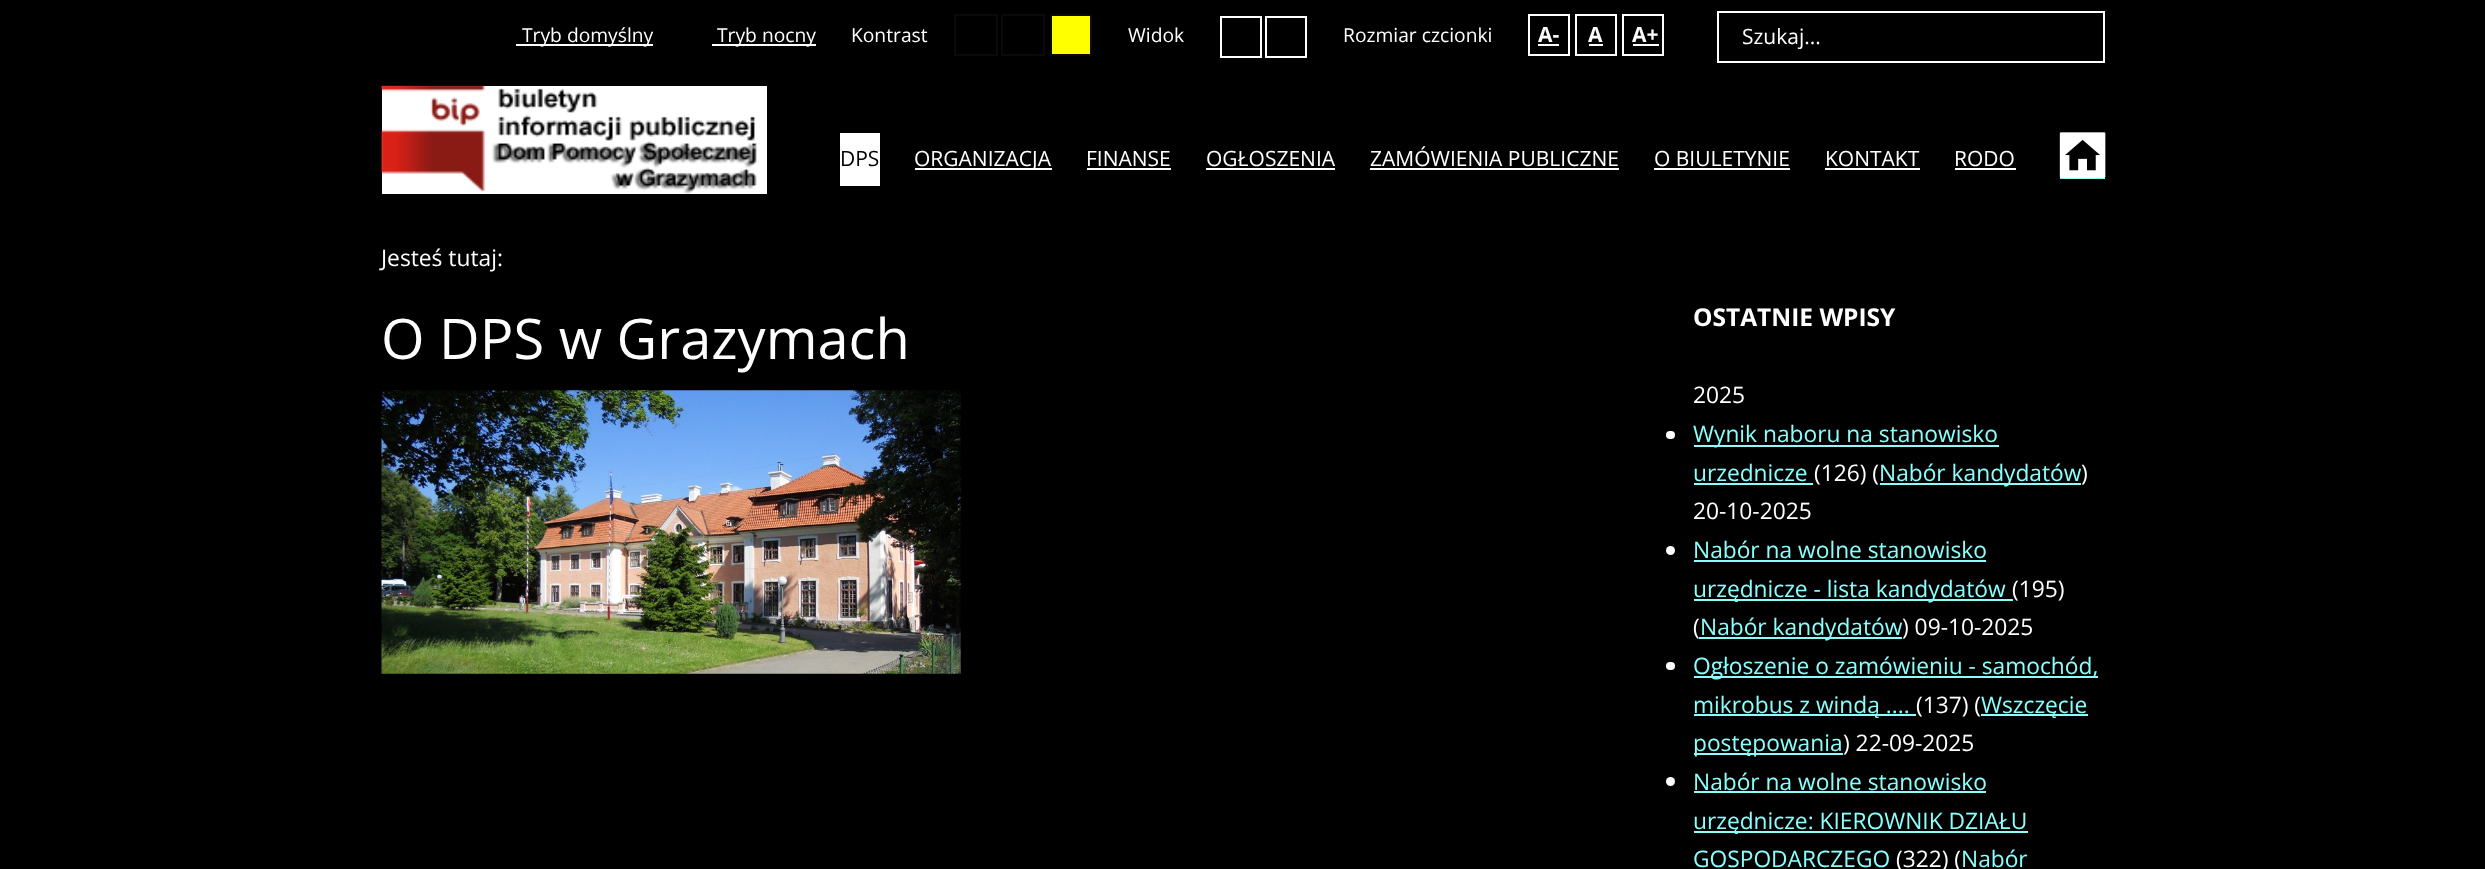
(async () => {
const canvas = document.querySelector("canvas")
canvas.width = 2485
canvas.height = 869
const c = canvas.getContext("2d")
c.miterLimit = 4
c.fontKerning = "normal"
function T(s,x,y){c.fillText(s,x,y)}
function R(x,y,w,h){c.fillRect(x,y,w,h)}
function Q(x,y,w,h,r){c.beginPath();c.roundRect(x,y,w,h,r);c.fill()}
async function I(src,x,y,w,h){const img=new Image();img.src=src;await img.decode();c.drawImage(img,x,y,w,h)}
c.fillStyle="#000"
R(0,0,2485,869)
c.fillStyle="#fff"
R(516,44,137,2)
c.font="19.25px Open Sans"
T("Tryb domyślny",522,42)
R(712,44,104,2)
T("Tryb nocny",717,42)
T("Kontrast",851,42)
c.strokeStyle="#0a0a0a"
c.lineWidth=2
c.strokeRect(955,15,42,40)
c.strokeRect(1002,15,42,40)
c.fillStyle="#ff0"
c.beginPath()
c.rect(1051,15,40,40)
c.fill()
c.stroke()
c.fillStyle="#fff"
T("Widok",1128,42)
c.strokeStyle="#fff"
c.strokeRect(1221,17,40,40)
c.strokeRect(1266,17,40,40)
T("Rozmiar czcionki",1343,42)
c.strokeRect(1529,15,40,40)
c.font="bold 21px Open Sans"
T("A-",1538,42)
R(1538,44,21,2)
c.strokeRect(1576,15,40,40)
T("A",1588,42)
R(1589,44,14,2)
c.strokeRect(1623,15,40,40)
T("A+",1632,42)
R(1633,44,26,2)
c.strokeRect(1718,12,386,50)
c.font="21px Open Sans"
T("Szukaj...",1742,44)
R(382,86,385,108)
await I("1.png",381,85,376,109)
R(840,133,40,53)
c.fillStyle="#000"
T("DPS",840,166)
c.fillStyle="#fff"
R(915,168,137,2)
T("ORGANIZACJA",914,166)
T("FINANSE",1086,166)
R(1087,168,84,2)
T("OGŁOSZENIA",1206,166)
R(1206,168,129,2)
T("ZAMÓWIENIA PUBLICZNE",1370,166)
R(1370,168,249,2)
T("O BIULETYNIE",1654,166)
R(1654,168,136,2)
T("KONTAKT",1825,166)
R(1825,168,95,2)
T("RODO",1954,166)
R(1955,168,61,2)
c.fillStyle="#8bfffb"
R(2060,177,45,2)
await I("2.png",2059,132,47,46)
c.font="22.75px Open Sans"
c.fillStyle="#fff"
T("Jesteś tutaj:",381,266)
c.font="56px Open Sans"
T("O DPS w Grazymach",381,359)
await I("3.png",381,390,580,284)
c.font="bold 24.5px Open Sans"
T("OSTATNIE WPISY",1693,326)
c.font="22.75px Open Sans"
T("2025",1693,403)
Q(1666,431,9,8,4)
c.fillStyle="#8bfffb"
R(1694,445,305,2)
T("Wynik naboru na stanowisko",1693,442)
T("urzednicze",1693,481)
R(1694,483,119,2)
c.fillStyle="#fff"
T("(126) (",1814,481)
c.fillStyle="#8bfffb"
R(1880,483,201,2)
T("Nabór kandydatów",1879,481)
c.fillStyle="#fff"
T(")",2081,481)
T("20-10-2025",1693,519)
c.beginPath()
c.arc(1670.5,550.5,4.5,0,7)
c.fill()
c.fillStyle="#8bfffb"
T("Nabór na wolne stanowisko",1693,558)
R(1694,560,292,2)
R(1694,599,319,2)
T("urzędnicze - lista kandydatów",1693,597)
c.fillStyle="#fff"
T("(195)",2012,597)
T("(",1693,635)
c.fillStyle="#8bfffb"
R(1699,637,203,2)
T("Nabór kandydatów",1700,635)
c.fillStyle="#fff"
T(") 09-10-2025",1902,635)
Q(1666,662,9,8,4)
c.fillStyle="#8bfffb"
R(1694,676,404,2)
T("Ogłoszenie o zamówieniu - samochód,",1693,674)
R(1694,714,222,2)
T("mikrobus z windą ....",1693,713)
c.fillStyle="#fff"
T("(137) (",1916,713)
c.fillStyle="#8bfffb"
R(1981,714,107,2)
T("Wszczęcie",1981,713)
R(1694,753,149,2)
T("postępowania",1693,751)
c.fillStyle="#fff"
T(") 22-09-2025",1843,751)
c.beginPath()
c.arc(1670.5,781.5,4.5,0,7)
c.fill()
c.fillStyle="#8bfffb"
T("Nabór na wolne stanowisko",1693,790)
R(1694,791,292,2)
R(1694,831,334,2)
T("urzędnicze: KIEROWNIK DZIAŁU",1693,829)
T("GOSPODARCZEGO",1693,867)
c.fillStyle="#fff"
T("(322) (",1896,867)
c.fillStyle="#8bfffb"
T("Nabór",1961,867)
})()
